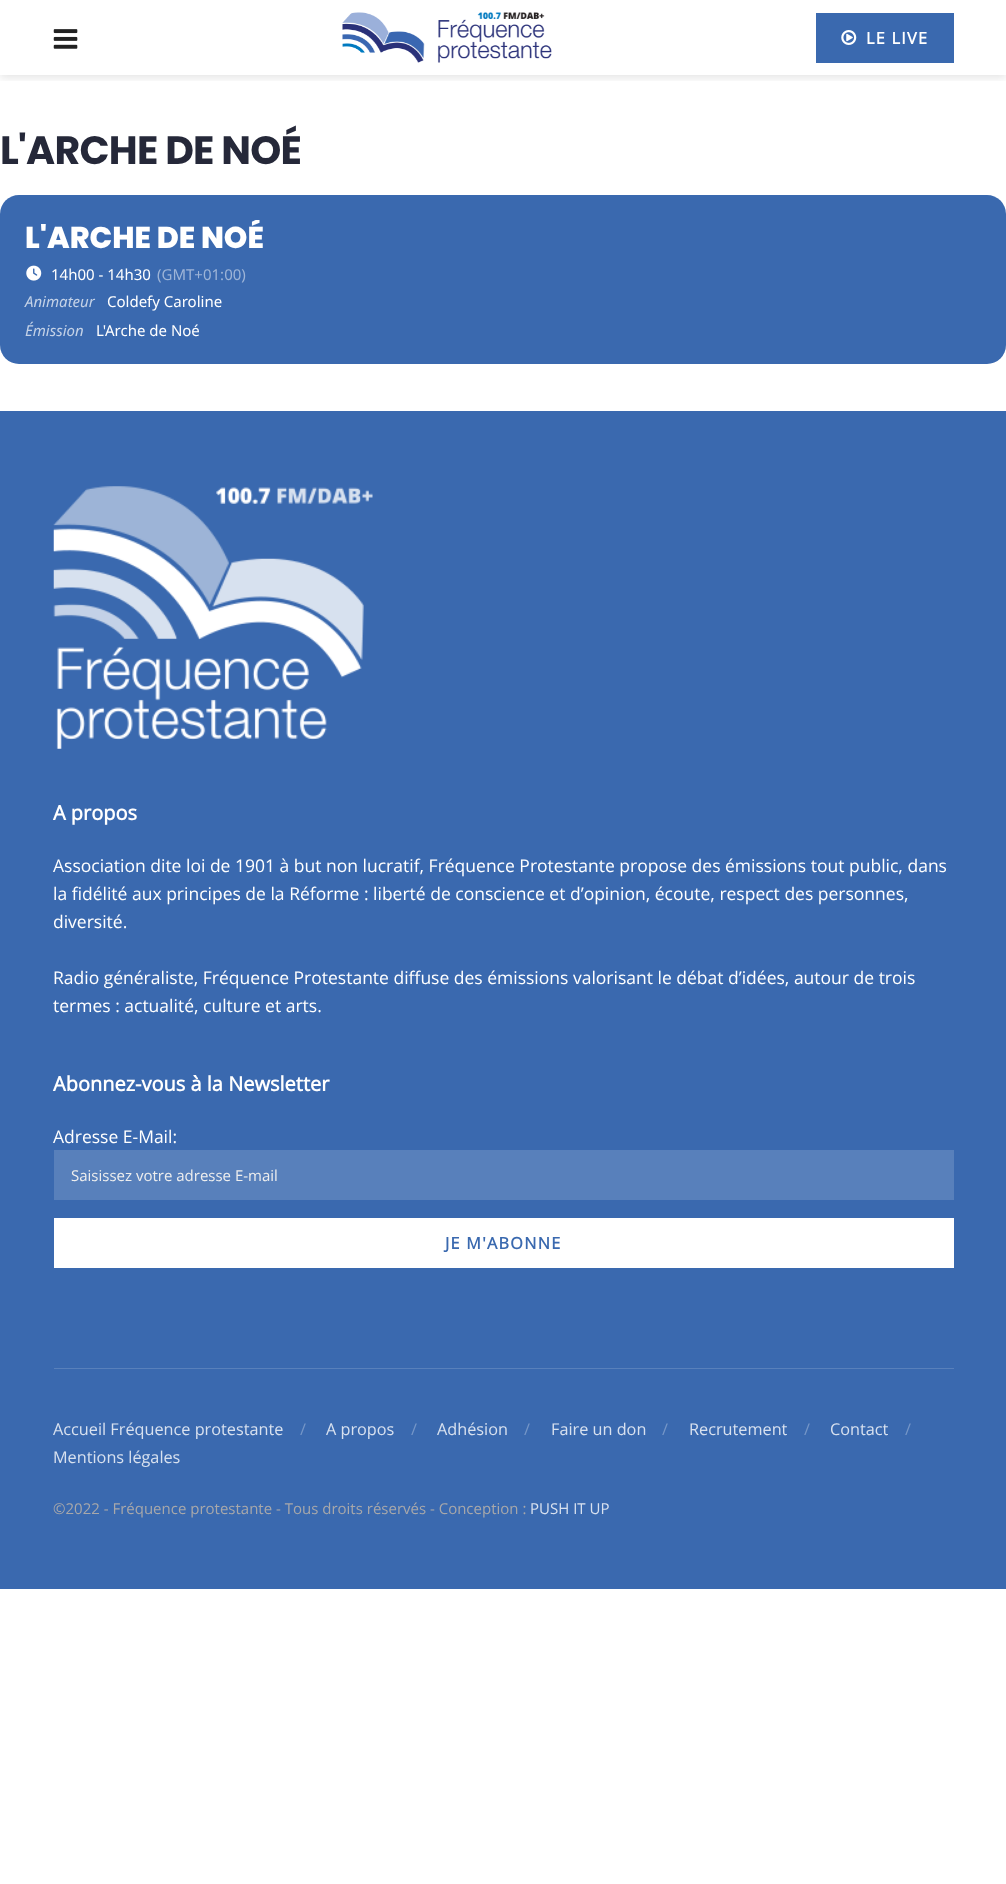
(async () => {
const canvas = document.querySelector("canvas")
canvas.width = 1006
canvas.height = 1884
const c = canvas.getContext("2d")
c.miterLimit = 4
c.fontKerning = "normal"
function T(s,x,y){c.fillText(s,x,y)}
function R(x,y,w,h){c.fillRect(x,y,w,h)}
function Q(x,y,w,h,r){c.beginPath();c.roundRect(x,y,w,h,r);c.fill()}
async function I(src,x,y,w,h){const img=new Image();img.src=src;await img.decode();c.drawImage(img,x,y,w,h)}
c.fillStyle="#fff"
R(0,0,1006,1884)
c.save()
c.beginPath()
c.rect(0,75,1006,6)
c.clip()
c.fillStyle="#0000001a"
c.filter="blur(4px)"
c.beginPath()
c.rect(0,3,1006,75)
c.fill()
c.filter="none"
c.restore()
await I("1.png",53,29,25,20)
await I("2.png",342,12,210,51)
c.fillStyle="#3a69af"
R(816,13,138,50)
await I("3.png",841,30,16,15)
c.letterSpacing="1.25px"
c.font="bold 16.25px Open Sans"
c.fillStyle="#fff"
T("LE LIVE",866,44)
c.letterSpacing="-0.75px"
c.font="bold 39.5px Poppins"
c.fillStyle="#252839"
T("L'ARCHE DE NOÉ",0,164)
c.fillStyle="#3a69af"
Q(0,195,1006,169,19)
c.save()
c.beginPath()
c.rect(25,220,938,119)
c.clip()
c.letterSpacing="0px"
c.font="800 30px Poppins"
c.fillStyle="#fff"
T("L'ARCHE DE NOÉ",25,248)
c.restore()
await I("4.png",26,265,16,16)
c.letterSpacing="0px"
c.font="15px Noto Sans"
c.fillStyle="#fff"
T("14h00 - 14h30",51,280)
c.fillStyle="#9db4d7"
T("(GMT+01:00)",157,280)
c.font="italic 15px Noto Sans"
c.fillStyle="#c4d2e7"
T("Animateur",25,307)
c.font="15px Noto Sans"
c.fillStyle="#fff"
T("Coldefy Caroline",107,307)
c.font="italic 15px Noto Sans"
c.fillStyle="#c4d2e7"
T("Émission",25,336)
c.font="15px Noto Sans"
c.fillStyle="#fff"
T("L'Arche de Noé",96,336)
c.fillStyle="#3a69af"
R(0,411,1006,1178)
await I("5.png",53,486,320,263)
c.font="bold 20px Open Sans"
c.fillStyle="#fff"
T("A propos",53,820)
c.font="17.5px Open Sans"
T("Association dite loi de 1901 à but non lucratif, Fréquence Protestante propose des émissions tout public, dans",53,872)
T("la fidélité aux principes de la Réforme : liberté de conscience et d’opinion, écoute, respect des personnes,",53,900)
T("diversité.",53,928)
T("Radio généraliste, Fréquence Protestante diffuse des émissions valorisant le débat d’idées, autour de trois",53,984)
T("termes : actualité, culture et arts.",53,1012)
c.font="bold 20px Open Sans"
T("Abonnez-vous à la Newsletter",53,1091)
c.font="17.5px Open Sans"
T("Adresse E-Mail:",53,1143)
c.fillStyle="#5880bb"
R(54,1150,900,50)
c.font="15px Open Sans"
c.fillStyle="#eee"
T("Saisissez votre adresse E-mail",71,1181)
c.fillStyle="#fff"
R(54,1218,900,50)
c.letterSpacing="1.25px"
c.font="bold 16.25px Open Sans"
c.fillStyle="#3a69af"
T("JE M'ABONNE",445,1249)
c.fillStyle="#5880bb"
R(54,1368,900,1)
c.letterSpacing="0px"
c.font="16.25px Open Sans"
c.fillStyle="#d8e1ef"
T("Accueil Fréquence protestante",53,1435)
c.fillStyle="#7596c7"
T("/",300,1435)
c.fillStyle="#d8e1ef"
T("A propos",326,1435)
c.fillStyle="#7596c7"
T("/",411,1435)
c.fillStyle="#d8e1ef"
T("Adhésion",437,1435)
c.fillStyle="#7596c7"
T("/",524,1435)
c.fillStyle="#d8e1ef"
T("Faire un don",551,1435)
c.fillStyle="#7596c7"
T("/",662,1435)
c.fillStyle="#d8e1ef"
T("Recrutement",689,1435)
c.fillStyle="#7596c7"
T("/",804,1435)
c.fillStyle="#d8e1ef"
T("Contact",830,1435)
c.fillStyle="#7596c7"
T("/",905,1435)
c.fillStyle="#d8e1ef"
T("Mentions légales",53,1463)
c.font="15px Open Sans"
c.fillStyle="#a8a8aa"
T("©2022 - Fréquence protestante - Tous droits réservés - Conception :",53,1514)
c.fillStyle="#d8e1ef"
T("PUSH IT UP",530,1514)
})()
